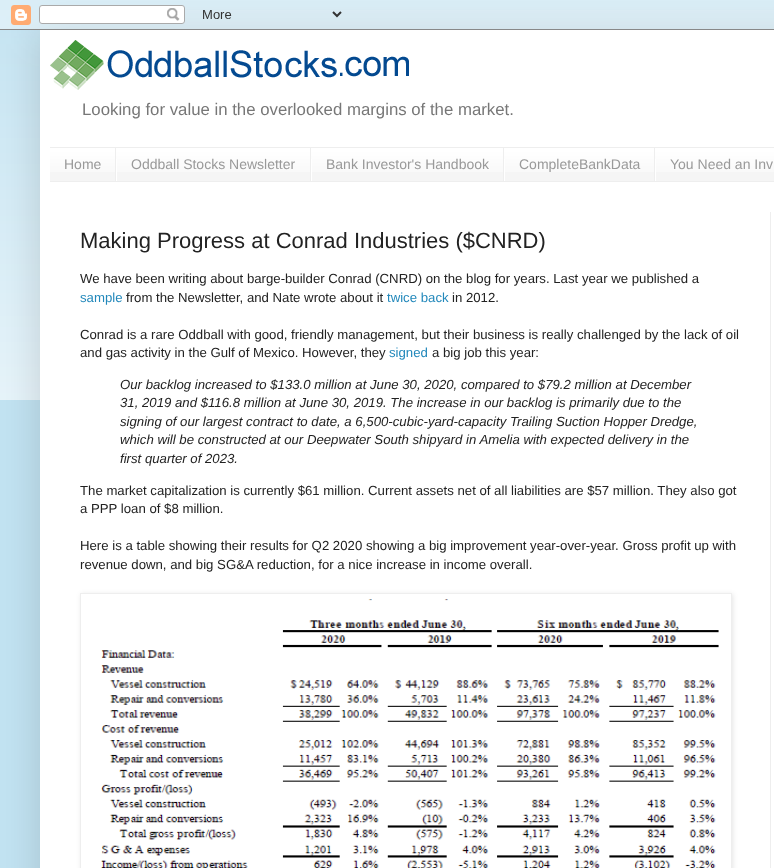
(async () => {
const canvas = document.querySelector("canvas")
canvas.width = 774
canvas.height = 868
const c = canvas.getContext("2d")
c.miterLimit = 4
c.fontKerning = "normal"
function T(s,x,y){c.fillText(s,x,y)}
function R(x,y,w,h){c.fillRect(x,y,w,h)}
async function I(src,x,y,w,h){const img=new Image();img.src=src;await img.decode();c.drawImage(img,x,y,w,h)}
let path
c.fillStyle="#c2e3f2"
R(0,0,774,868)
await I("2.png",0,10,774,390)
c.fillStyle="#00000026"
c.filter="blur(20px)"
c.beginPath()
c.rect(40,30,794,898)
c.fill()
c.filter="none"
await I("1.png",0,0,774,30)
c.fillStyle="#fff"
R(40,30,734,838)
await I("3.png",50,40,359,50)
c.font="16.8px Liberation Sans"
c.fillStyle="#777"
T("Looking for value in the overlooked margins of the market.",82,115)
c.fillStyle="#f5f5f5"
R(50,149,724,32)
await I("4.png",50,148,724,24)
c.fillStyle="#eee"
R(50,147,724,1)
R(50,181,724,1)
R(115,148,1,33)
c.font="14px Liberation Sans"
c.fillStyle="#999"
T("Home",64,169)
c.fillStyle="#eee"
R(310,148,1,33)
c.fillStyle="#fff"
R(116,159,1,22)
c.fillStyle="#999"
T("Oddball Stocks Newsletter",131,169)
c.fillStyle="#eee"
R(503,148,1,33)
c.fillStyle="#fff"
R(311,159,1,22)
c.fillStyle="#999"
T("Bank Investor's Handbook",326,169)
c.fillStyle="#eee"
R(654,148,1,33)
c.fillStyle="#fff"
R(504,159,1,22)
c.fillStyle="#999"
T("CompleteBankData",519,169)
c.fillStyle="#fff"
R(655,159,1,22)
c.fillStyle="#999"
T("You Need an Inv",670,169)
c.font="22px Liberation Sans"
c.fillStyle="#222"
T("Making Progress at Conrad Industries ($CNRD)",80,248)
c.font="13.2px Liberation Sans"
T("We have been writing about barge-builder Conrad (CNRD) on the blog for years. Last year we published a",80,283)
c.fillStyle="#28b"
T("sample",80,302)
c.fillStyle="#222"
T("from the Newsletter, and Nate wrote about it",126,302)
c.fillStyle="#28b"
T("twice back",387,302)
c.fillStyle="#222"
T("in 2012.",452,302)
T("Conrad is a rare Oddball with good, friendly management, but their business is really challenged by the lack of oil",80,339)
T("and gas activity in the Gulf of Mexico. However, they",80,357)
c.fillStyle="#28b"
T("signed",389,357)
c.fillStyle="#222"
T("a big job this year:",432,357)
c.font="italic 13.2px Liberation Sans"
T("Our backlog increased to $133.0 million at June 30, 2020, compared to $79.2 million at December",120,389)
T("31, 2019 and $116.8 million at June 30, 2019. The increase in our backlog is primarily due to the",120,407)
T("signing of our largest contract to date, a 6,500-cubic-yard-capacity Trailing Suction Hopper Dredge,",120,426)
T("which will be constructed at our Deepwater South shipyard in Amelia with expected delivery in the",120,444)
T("first quarter of 2023.",120,463)
c.font="13.2px Liberation Sans"
T("The market capitalization is currently $61 million. Current assets net of all liabilities are $57 million. They also got",80,495)
T("a PPP loan of $8 million.",80,513)
T("Here is a table showing their results for Q2 2020 showing a big improvement year-over-year. Gross profit up with",80,550)
T("revenue down, and big SG&A reduction, for a nice increase in income overall.",80,569)
c.save()
path = new Path2D("M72 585h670v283h-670zm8 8h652v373h-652z")
c.clip(path,"evenodd")
c.fillStyle="#0000001a"
c.filter="blur(2.5px)"
c.beginPath()
c.rect(81,594,652,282)
c.fill()
c.filter="none"
c.restore()
c.strokeStyle="#eee"
c.strokeRect(80.5,593.5,651,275)
await I("5.png",101,599,618,269)
c.fillStyle="#eee"
R(770,212,1,656)
})()
